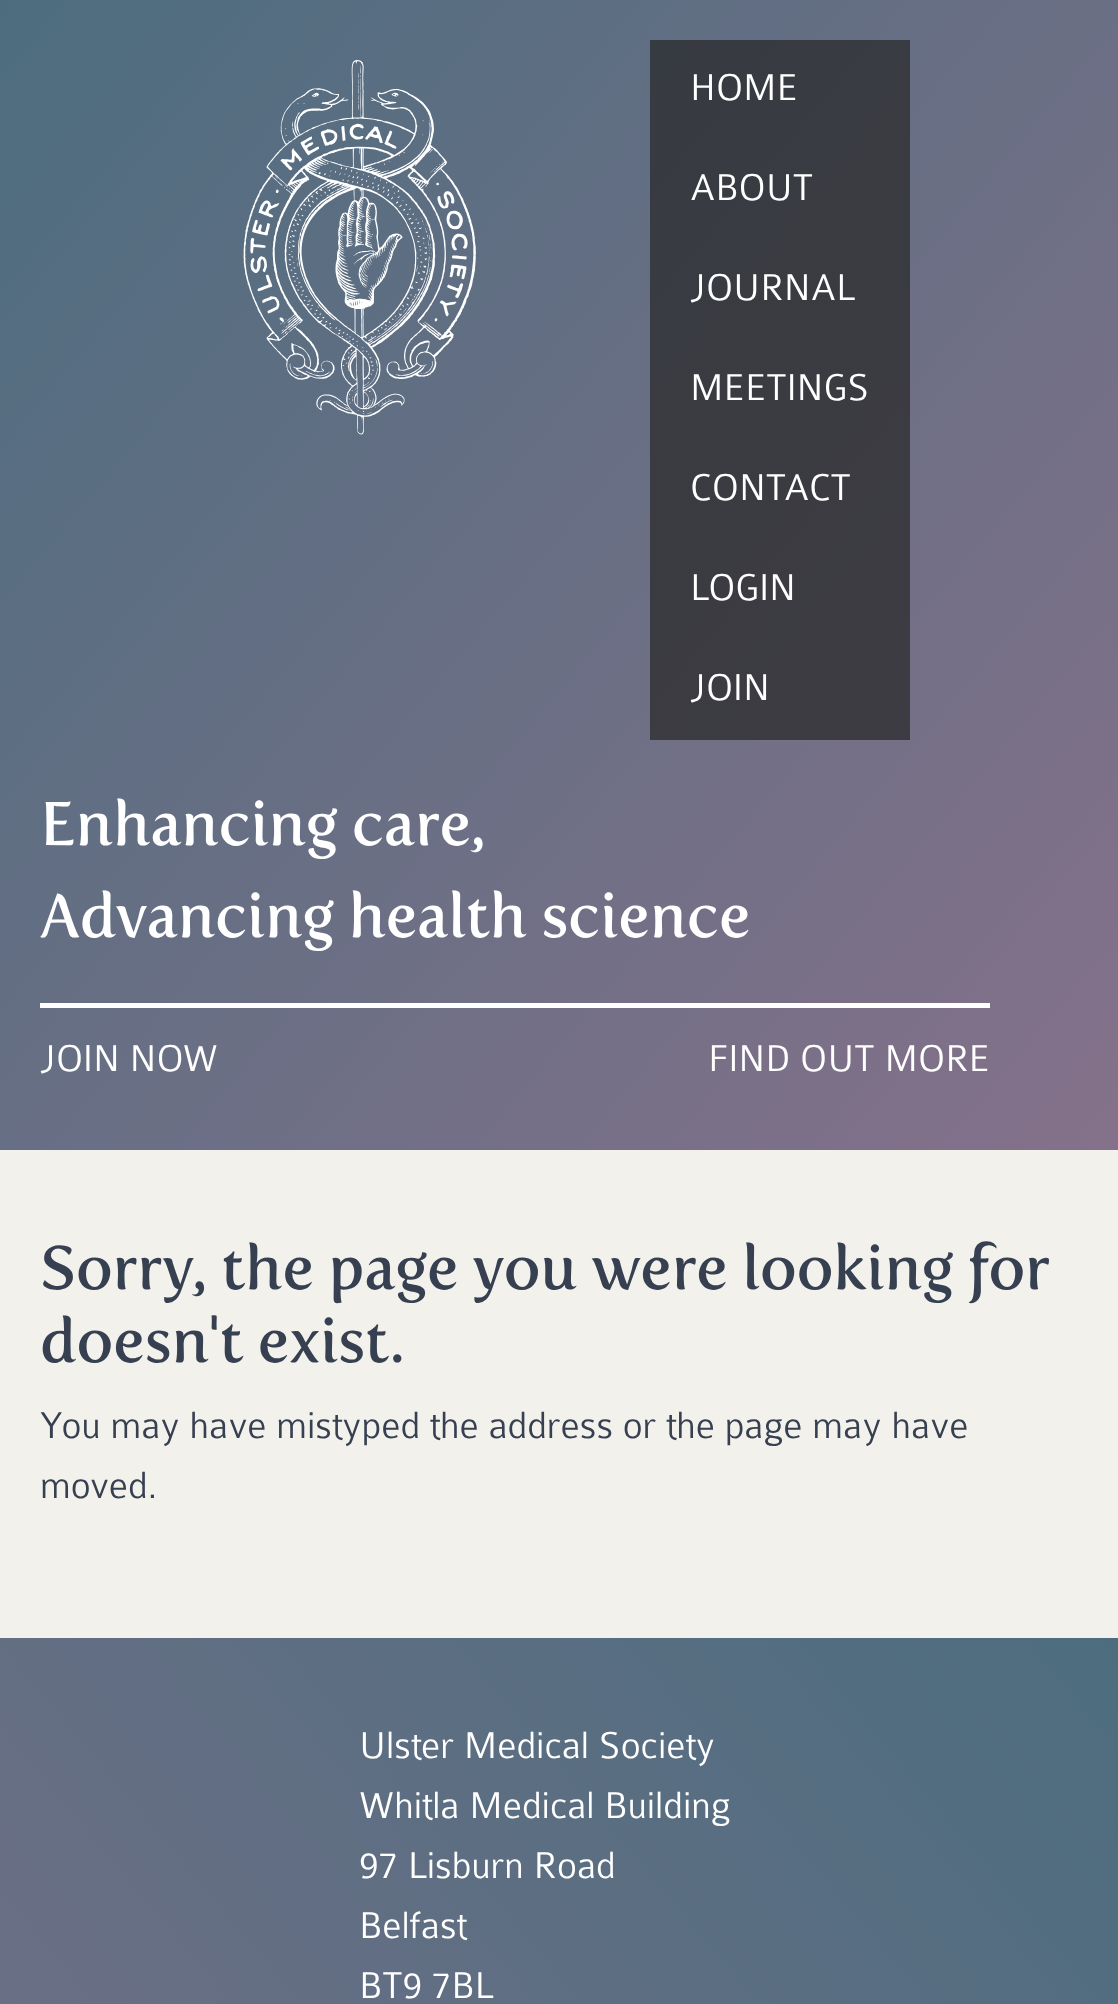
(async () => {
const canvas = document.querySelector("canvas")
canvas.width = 1118
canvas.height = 2004
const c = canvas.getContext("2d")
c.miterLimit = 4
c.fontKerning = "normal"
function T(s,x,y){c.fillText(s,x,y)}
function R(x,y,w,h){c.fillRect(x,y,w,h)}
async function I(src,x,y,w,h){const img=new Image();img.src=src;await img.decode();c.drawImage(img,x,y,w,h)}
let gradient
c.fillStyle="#f2f1ec"
R(0,0,1118,2004)
gradient = c.createLinearGradient(-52,62,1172,1088)
gradient.addColorStop(0,"#4d6d7f")
gradient.addColorStop(1,"#85718a")
c.fillStyle = gradient
R(0,0,1118,1150)
gradient = c.createLinearGradient(-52,62,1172,1088)
gradient.addColorStop(0,"#313b40")
gradient.addColorStop(1,"#423c43")
c.fillStyle = gradient
R(650,40,260,700)
await I("1.png",243,60,233,375)
c.font="300 40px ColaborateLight"
c.fillStyle="#fff"
T("HOME",690,100)
T("ABOUT",690,200)
T("JOURNAL",690,300)
T("MEETINGS",690,400)
T("CONTACT",690,500)
T("LOGIN",690,600)
T("JOIN",690,700)
c.font="61.25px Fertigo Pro"
T("Enhancing care,",40,845)
T("Advancing health science",40,937)
R(40,1003,950,5)
c.font="300 40px ColaborateLight"
T("JOIN NOW",40,1071)
T("FIND OUT MORE",708,1071)
c.font="61.25px Fertigo Pro"
c.fillStyle="#374051"
T("Sorry, the page you were looking for",40,1289)
T("doesn't exist.",40,1362)
c.font="300 40px ColaborateLight"
T("You may have mistyped the address or the page may have",40,1438)
T("moved.",40,1498)
gradient = c.createLinearGradient(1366,1931,-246,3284)
gradient.addColorStop(0,"#4d6d7f")
gradient.addColorStop(1,"#85718a")
c.fillStyle = gradient
R(0,1638,1118,366)
c.fillStyle="#fff"
T("Ulster Medical Society",359,1758)
T("Whitla Medical Building",359,1818)
T("97 Lisburn Road",359,1878)
T("Belfast",359,1938)
T("BT9 7BL",359,1998)
})()
